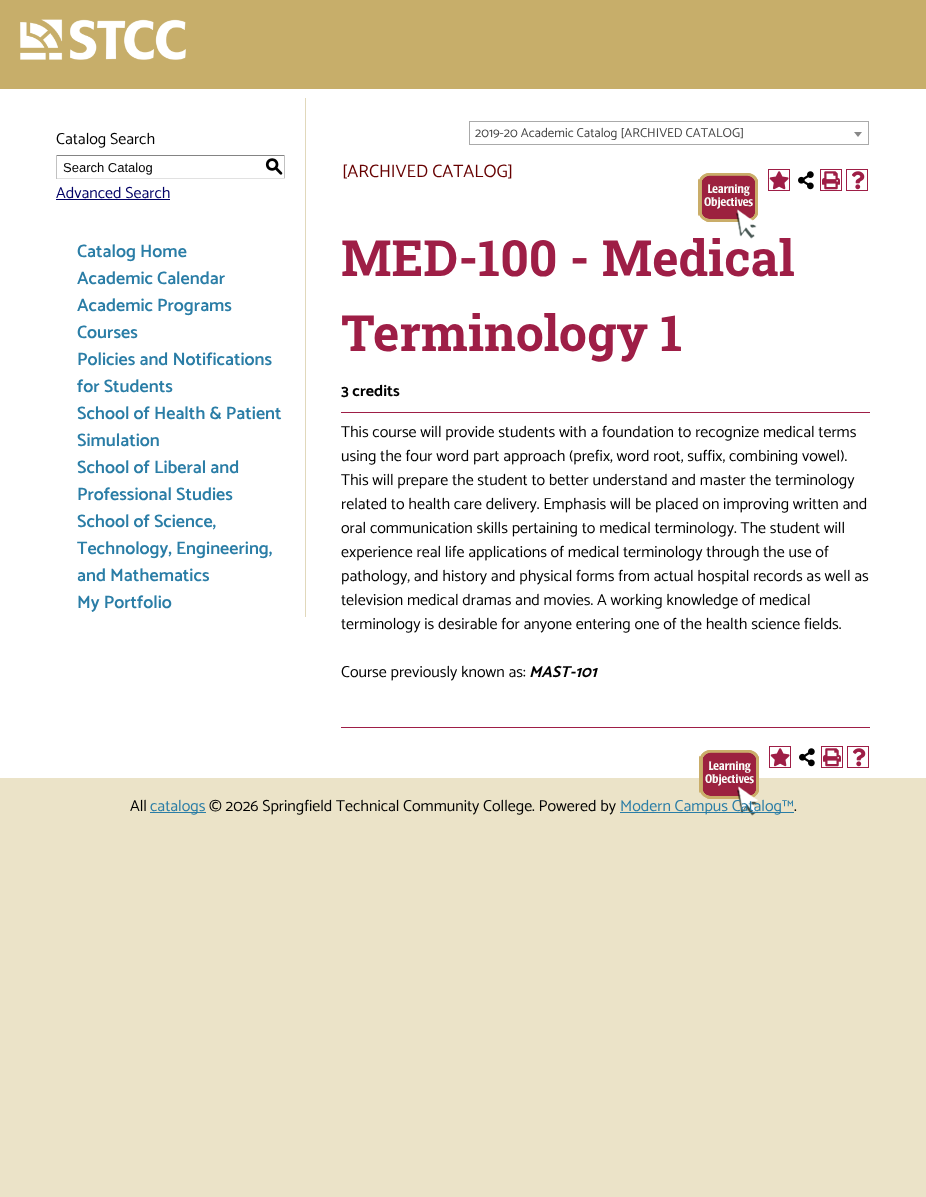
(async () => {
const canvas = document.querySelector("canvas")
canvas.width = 926
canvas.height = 1197
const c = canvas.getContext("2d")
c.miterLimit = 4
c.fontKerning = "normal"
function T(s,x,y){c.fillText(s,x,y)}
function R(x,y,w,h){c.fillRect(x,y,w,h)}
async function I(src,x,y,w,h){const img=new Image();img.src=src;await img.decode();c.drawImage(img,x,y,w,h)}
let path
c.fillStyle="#ebe3c8"
R(0,0,926,1197)
c.fillStyle="#fff"
R(0,89,926,689)
c.fillStyle="#c7ae6a"
R(0,0,926,89)
await I("1.png",20,19,166,41)
c.strokeStyle="#aaa"
c.strokeRect(469.5,121.5,399,23)
c.font="13px Catamaran"
c.fillStyle="#444"
T("2019-20 Academic Catalog [ARCHIVED CATALOG]",475,137)
c.fillStyle="#888"
path = new Path2D("M854 132h8l-4 5z")
c.fill(path)
c.fillStyle="#e1d8bb"
R(305,98,1,519)
c.font="16px Catamaran"
c.fillStyle="#000"
T("Catalog Search",56,144)
c.fillStyle="#848484"
R(56,155,229,1)
c.fillStyle="#c1c1c1"
R(284,155,1,24)
c.fillStyle="#e1e1e1"
R(56,178,229,1)
c.fillStyle="#c1c1c1"
R(56,155,1,24)
c.font="13px Liberation Sans"
c.fillStyle="#000"
T("Search Catalog",63,172)
c.font="500 18px 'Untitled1'"
T("S",265,172)
c.font="16px Catamaran"
c.fillStyle="#006"
T("Advanced Search",56,198)
R(56,199,114,1)
c.font="600 18px Catamaran"
c.fillStyle="#2a7da6"
T("Catalog Home",77,257)
T("Academic Calendar",77,284)
T("Academic Programs",77,311)
T("Courses",77,338)
T("Policies and Notifications",77,365)
T("for Students",77,392)
T("School of Health & Patient",77,419)
T("Simulation",77,446)
T("School of Liberal and",77,473)
T("Professional Studies",77,500)
T("School of Science,",77,527)
T("Technology, Engineering,",77,554)
T("and Mathematics",77,581)
T("My Portfolio",77,608)
c.font="18px Catamaran"
c.fillStyle="#600"
T("[ARCHIVED CATALOG]",342,177)
await I("2.png",698,173,60,66)
c.strokeStyle="#9e1e46"
c.strokeRect(768.5,169.5,21,21)
await I("3.png",769,171,20,19)
await I("4.png",798,171,16,19)
c.strokeRect(820.5,169.5,21,21)
await I("5.png",822,171,18,19)
c.strokeRect(846.5,169.5,21,21)
await I("6.png",852,171,13,19)
c.font="bold 50px Roboto Slab"
c.fillStyle="#9e1e46"
T("MED-100 - Medical",341,276)
T("Terminology 1",341,351)
c.font="bold 16px Catamaran"
c.fillStyle="#000"
T("3 credits",341,396)
c.fillStyle="#9e1e46"
R(341,412,529,1)
c.font="16px Catamaran"
c.fillStyle="#000"
T("This course will provide students with a foundation to recognize medical terms",341,437)
T("using the four word part approach (prefix, word root, suffix, combining vowel).",341,461)
T("This will prepare the student to better understand and master the terminology",341,485)
T("related to health care delivery. Emphasis will be placed on improving written and",341,509)
T("oral communication skills pertaining to medical terminology. The student will",341,533)
T("experience real life applications of medical terminology through the use of",341,557)
T("pathology, and history and physical forms from actual hospital records as well as",341,581)
T("television medical dramas and movies. A working knowledge of medical",341,605)
T("terminology is desirable for anyone entering one of the health science fields.",341,629)
T("Course previously known as:",341,677)
c.font="italic bold 16px Catamaran"
T("MAST-101",529,677)
c.fillStyle="#9e1e46"
R(341,727,529,1)
await I("7.png",699,750,60,66)
c.strokeRect(769.5,746.5,21,21)
await I("3.png",770,748,20,19)
await I("4.png",799,748,16,19)
c.strokeRect(821.5,746.5,21,21)
await I("5.png",823,748,18,19)
c.strokeRect(847.5,746.5,21,21)
await I("6.png",853,748,13,19)
c.font="16px Catamaran"
c.fillStyle="#000"
T("All",130,811)
c.fillStyle="#2a7da6"
R(150,812,56,1)
T("catalogs",150,811)
c.fillStyle="#000"
T("© 2026 Springfield Technical Community College. Powered by",209,811)
c.fillStyle="#2a7da6"
R(620,812,174,1)
T("Modern Campus Catalog™",620,811)
c.fillStyle="#000"
T(".",794,811)
})()
